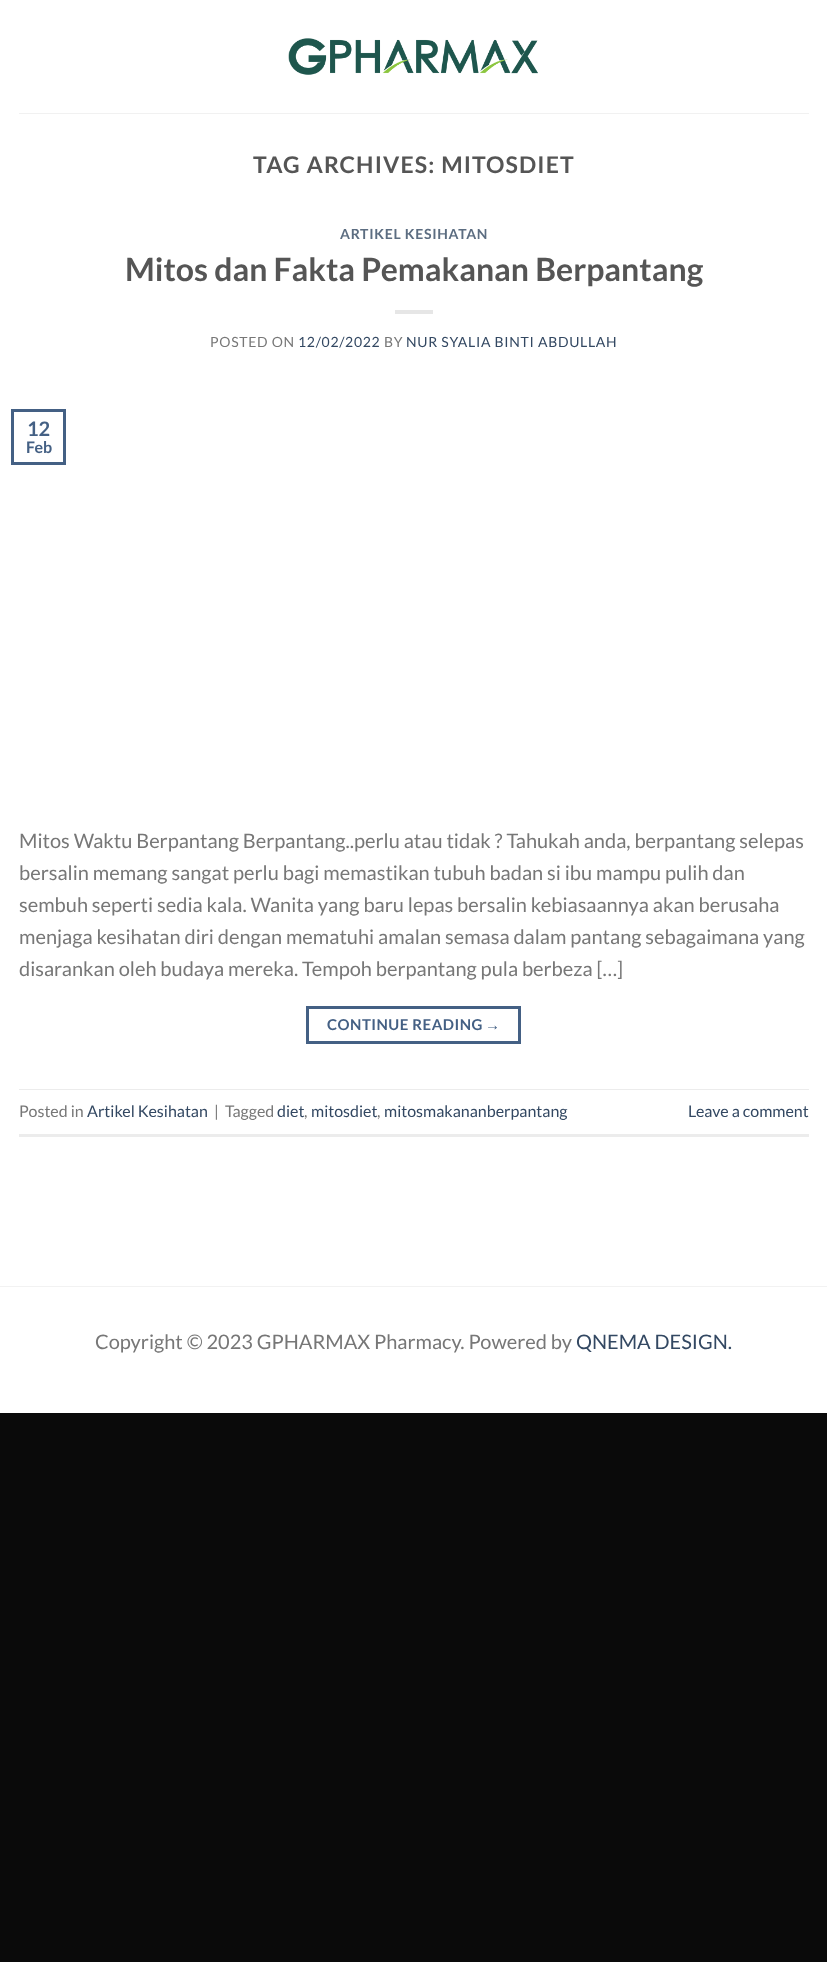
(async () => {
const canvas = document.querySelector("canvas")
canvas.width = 827
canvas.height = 1962
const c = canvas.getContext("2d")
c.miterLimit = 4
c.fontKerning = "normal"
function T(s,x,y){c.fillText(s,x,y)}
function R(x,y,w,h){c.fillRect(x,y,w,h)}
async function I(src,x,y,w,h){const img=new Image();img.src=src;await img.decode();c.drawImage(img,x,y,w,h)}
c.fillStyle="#0a0a0a"
R(0,0,827,1962)
c.fillStyle="#fff"
R(0,0,827,1413)
await I("1.png",288,38,250,37)
c.fillStyle="#f1f1f1"
R(19,113,790,1)
c.letterSpacing="1.15px"
c.font="bold 23px Lato"
c.fillStyle="#555"
T("TAG ARCHIVES: MITOSDIET",253,173)
c.letterSpacing="0.7px"
c.font="bold 14px Lato"
c.fillStyle="#5c6d81"
T("ARTIKEL KESIHATAN",340,239)
c.letterSpacing="0px"
c.font="bold 32px Lato"
c.fillStyle="#555"
T("Mitos dan Fakta Pemakanan Berpantang",125,281)
c.fillStyle="#e6e6e6"
R(395,310,38,4)
c.letterSpacing="0.7px"
c.font="14px Lato"
c.fillStyle="#777"
T("POSTED ON",210,347)
c.fillStyle="#334862"
T("12/02/2022",298,347)
c.fillStyle="#777"
T("BY",384,347)
c.fillStyle="#334862"
T("NUR SYALIA BINTI ABDULLAH",406,347)
c.strokeStyle="#446084"
c.lineWidth=3
c.strokeRect(12.5,410.5,52,53)
c.letterSpacing="0px"
c.font="bold 20px Lato"
c.fillStyle="#446084"
T("12",27,436)
c.font="bold 16px Lato"
T("Feb",26,453)
c.font="20px Lato"
c.fillStyle="#777"
T("Mitos Waktu Berpantang Berpantang..perlu atau tidak ? Tahukah anda, berpantang selepas",19,848)
T("bersalin memang sangat perlu bagi memastikan tubuh badan si ibu mampu pulih dan",19,880)
T("sembuh seperti sedia kala. Wanita yang baru lepas bersalin kebiasaannya akan berusaha",19,912)
T("menjaga kesihatan diri dengan mematuhi amalan semasa dalam pantang sebagaimana yang",19,944)
T("disarankan oleh budaya mereka. Tempoh berpantang pula berbeza […]",19,976)
c.strokeRect(307.5,1007.5,212,35)
c.letterSpacing="0.5px"
c.font="bold 15px Lato"
c.fillStyle="#446084"
T("CONTINUE READING",327,1030)
c.font="bold 15px Liberation Sans"
T("→",485,1030)
c.fillStyle="#ececec"
R(19,1089,790,1)
R(19,1134,790,3)
c.letterSpacing="0px"
c.font="16px Lato"
c.fillStyle="#777"
T("Posted in",19,1117)
c.fillStyle="#334862"
T("Artikel Kesihatan",87,1117)
c.fillStyle="#777"
T("|",214,1117)
T("Tagged",225,1117)
c.fillStyle="#334862"
T("diet",277,1117)
c.fillStyle="#777"
T(",",304,1117)
c.fillStyle="#334862"
T("mitosdiet",311,1117)
c.fillStyle="#777"
T(",",377,1117)
c.fillStyle="#334862"
T("mitosmakananberpantang",384,1117)
T("Leave a comment",688,1117)
c.fillStyle="#f2f2f2"
R(0,1286,827,1)
c.font="20px Lato"
c.fillStyle="#777"
T("Copyright © 2023 GPHARMAX Pharmacy. Powered by",95,1349)
c.fillStyle="#334862"
T("QNEMA DESIGN.",576,1349)
})()
